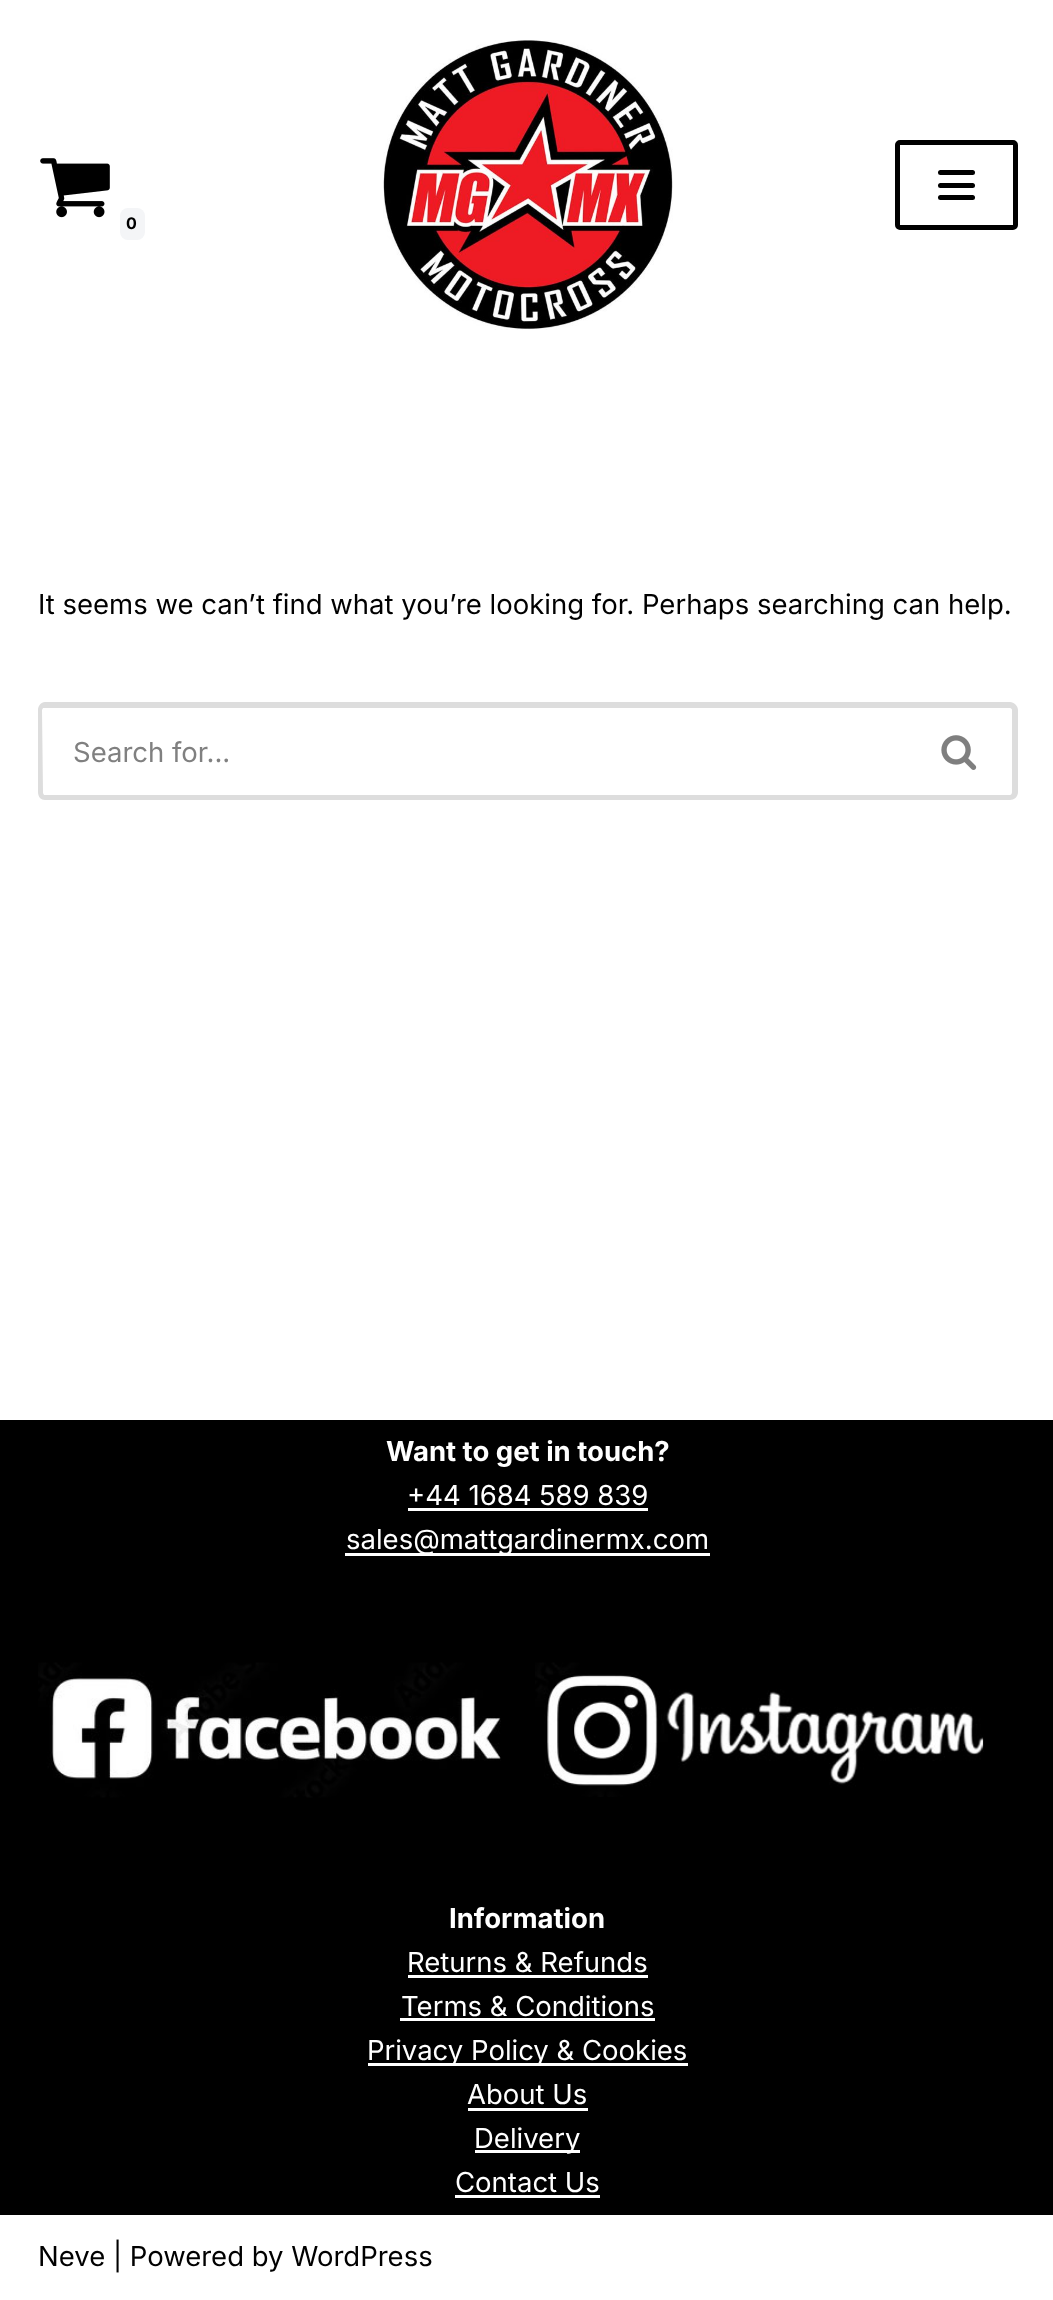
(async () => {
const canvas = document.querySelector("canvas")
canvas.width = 1053
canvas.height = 2300
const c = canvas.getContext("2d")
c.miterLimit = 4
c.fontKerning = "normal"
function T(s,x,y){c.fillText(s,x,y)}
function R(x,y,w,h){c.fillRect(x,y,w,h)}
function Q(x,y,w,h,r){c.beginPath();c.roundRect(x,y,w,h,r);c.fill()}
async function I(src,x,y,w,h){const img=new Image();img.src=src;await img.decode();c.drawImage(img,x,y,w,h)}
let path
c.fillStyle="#fff"
R(0,0,1053,2300)
await I("1.png",40,158,70,60)
c.fillStyle="#f4f5f7"
Q(120,208,25,32,8)
c.font="bold 16px Inter"
c.fillStyle="#000"
T("0",126,229)
await I("2.png",383,40,290,290)
c.beginPath()
c.roundRect(897.5,142.5,118,85,2.5)
c.strokeStyle="#000"
c.lineWidth=5
c.stroke()
Q(938,183,37,5,2.5)
Q(938,170,37,5,2.5)
Q(938,195,37,5,2.5)
c.font="27.5px Inter"
T("It seems we can’t find what you’re looking for. Perhaps searching can help.",38,614)
c.fillStyle="#ddd"
path = new Path2D("M45 702h860v98h-860c-4 0-7-3-7-8v-82c0-4 3-8 7-8zm0 6h860v87h-861l-1-2l-1-83l1-2z")
c.fill(path,"evenodd")
c.fillStyle="#808080"
T("Search for...",73,762)
c.fillStyle="#ddd"
path = new Path2D("M905 702h105c4 0 8 4 8 8v82c0 5-4 8-8 8h-105zm0 6h105c1 0 2 1 2 2v82c0 2-1 3-2 3h-105z")
c.fill(path,"evenodd")
await I("3.png",941,735,36,35)
c.fillStyle="#000"
R(0,1420,1053,795)
c.font="bold 27.5px Inter"
c.fillStyle="#fff"
T("Want to get in touch?",386,1461)
c.font="27.5px Inter"
T("+44 1684 589 839",407,1505)
R(408,1508,240,3)
R(345,1553,365,3)
T("sales@mattgardinermx.com",346,1549)
await I("4.png",38,1662,463,136)
await I("5.png",535,1662,449,135)
c.font="bold 27.5px Inter"
T("Information",449,1928)
c.font="27.5px Inter"
T("Returns & Refunds",407,1972)
R(408,1975,240,3)
T("Terms & Conditions",401,2016)
R(400,2018,255,3)
R(368,2063,320,3)
T("Privacy Policy & Cookies",367,2060)
T("About Us",467,2104)
R(468,2108,120,3)
R(475,2150,105,3)
T("Delivery",474,2148)
T("Contact Us",455,2192)
R(455,2195,145,3)
c.fillStyle="#000"
T("Neve | Powered by WordPress",38,2266)
})()
